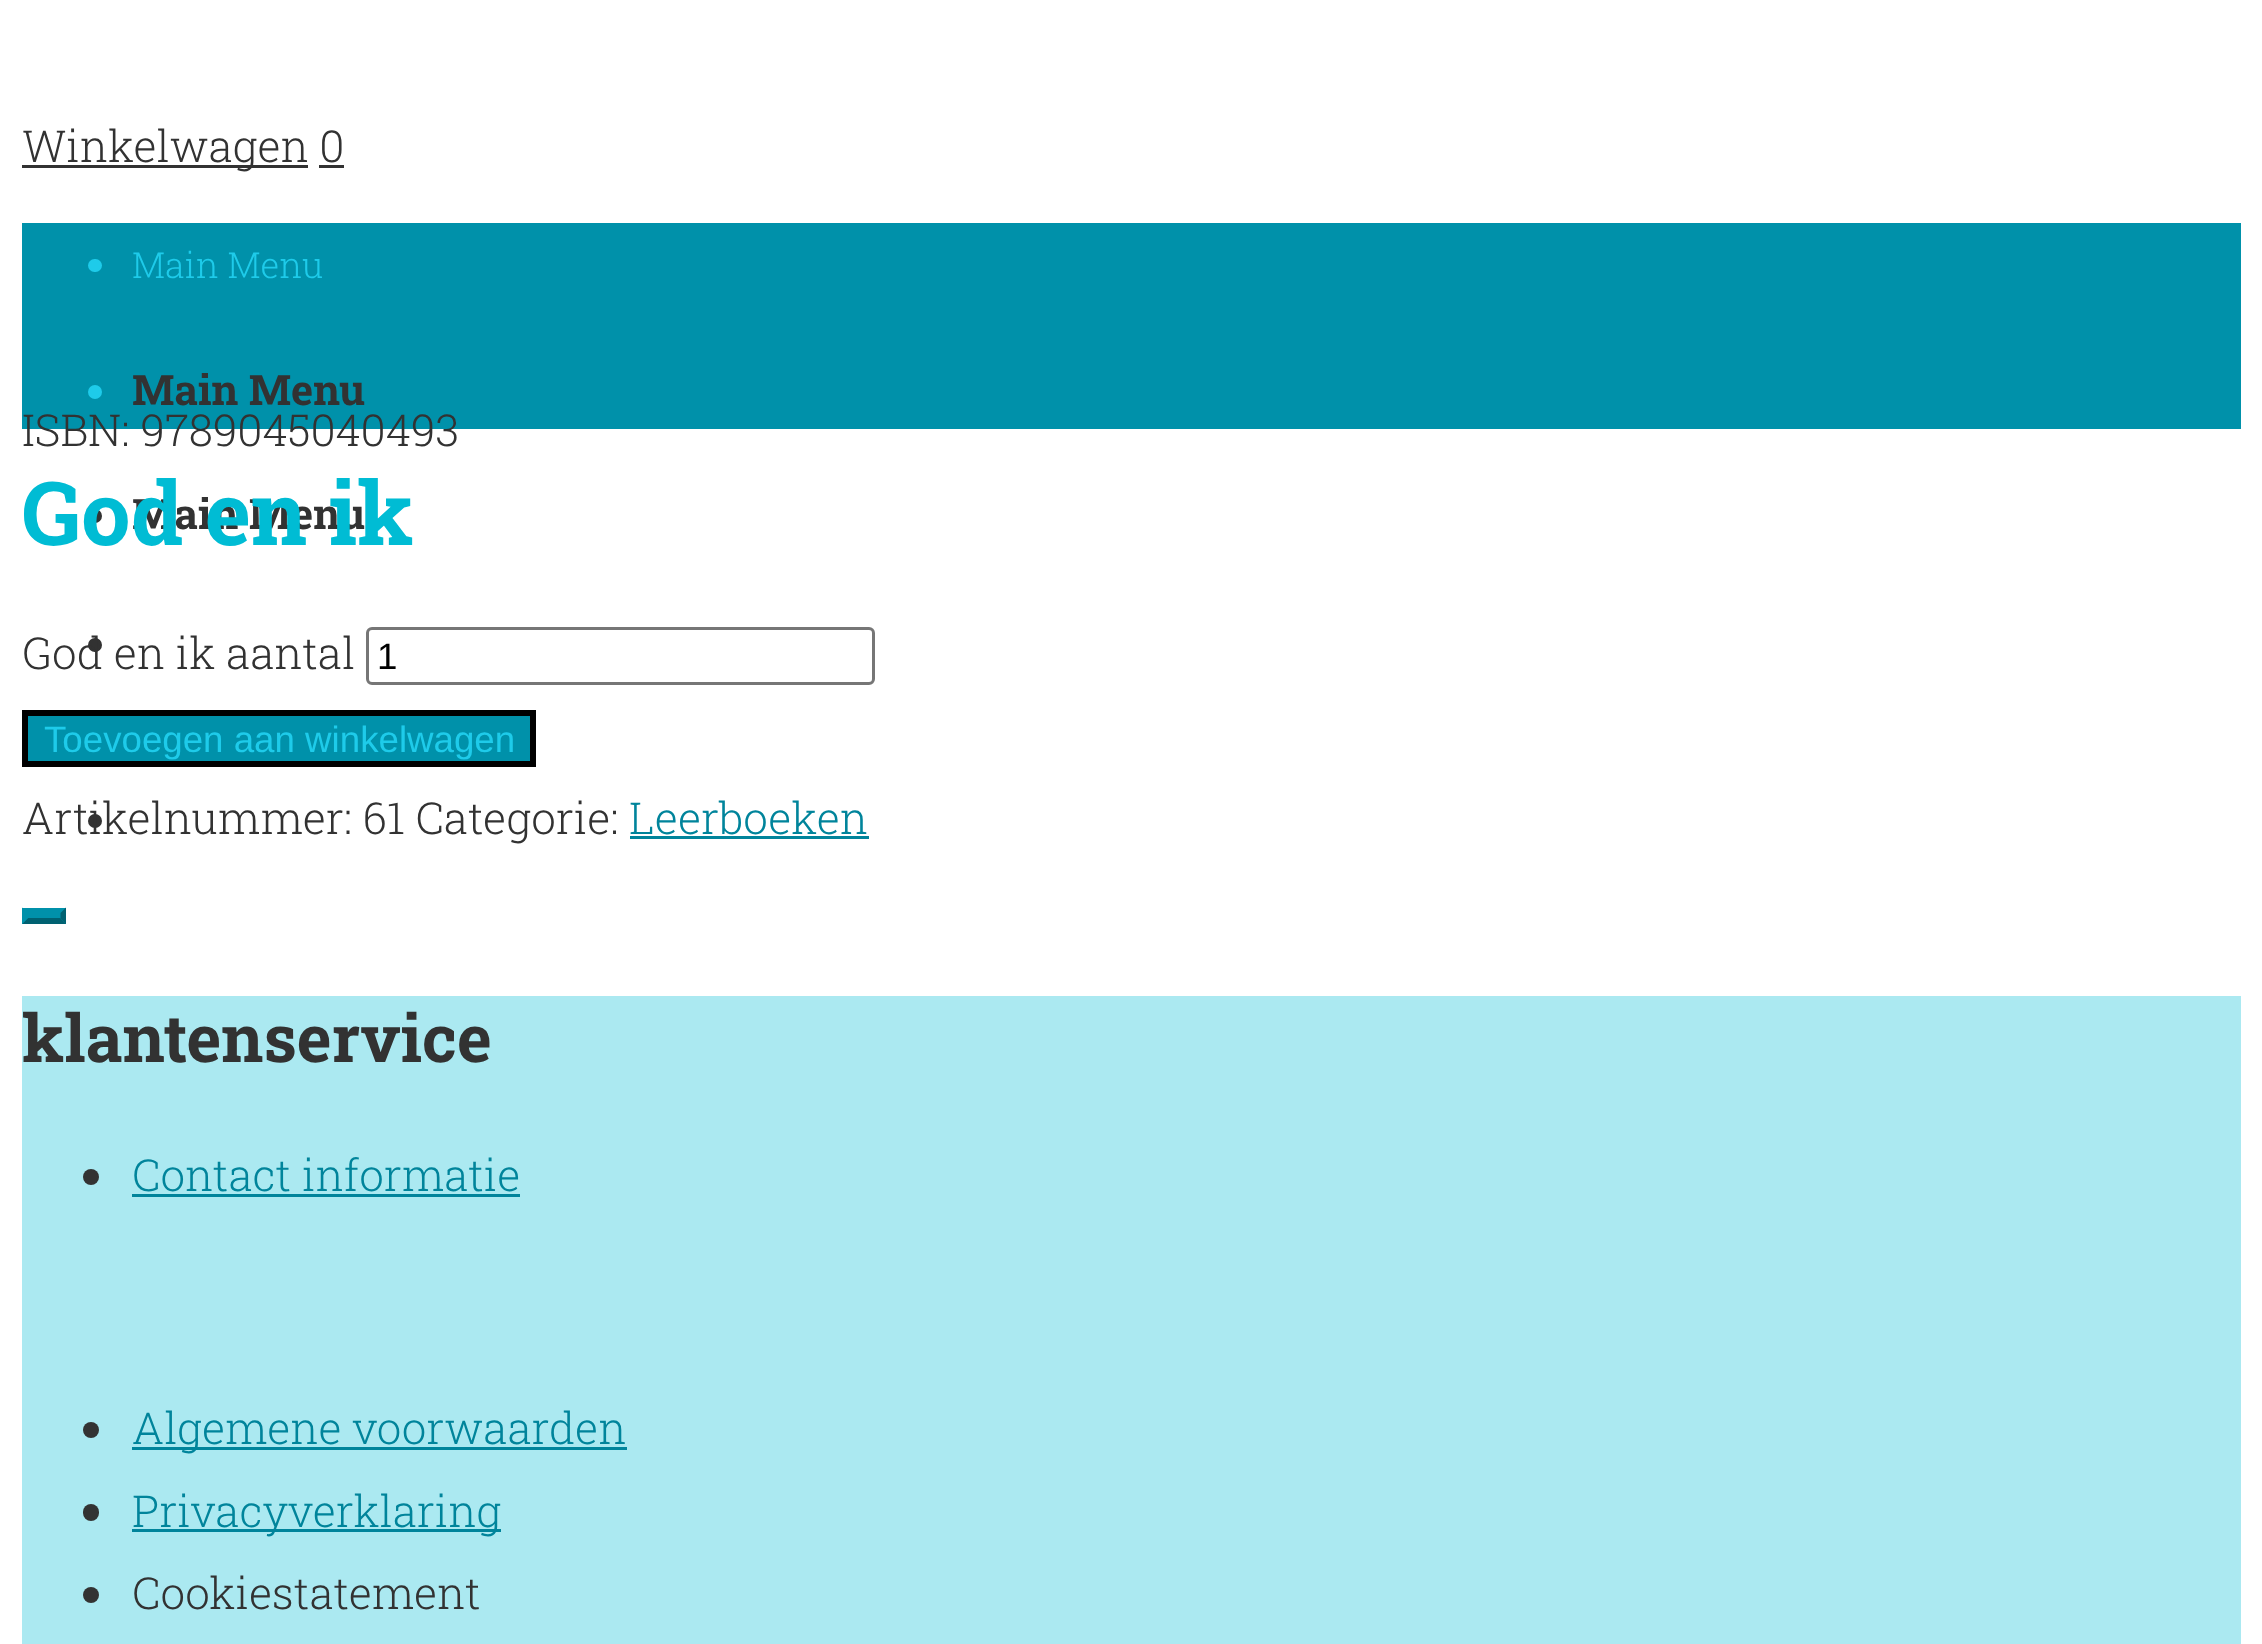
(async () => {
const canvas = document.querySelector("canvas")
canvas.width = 2262
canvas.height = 1644
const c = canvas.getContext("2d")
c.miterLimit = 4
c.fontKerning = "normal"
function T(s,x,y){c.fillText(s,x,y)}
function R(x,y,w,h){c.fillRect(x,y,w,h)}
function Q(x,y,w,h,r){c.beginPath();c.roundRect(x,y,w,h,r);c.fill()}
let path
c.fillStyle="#fff"
R(0,0,2262,1644)
c.fillStyle="#323232"
R(22,165,286,3)
c.font="300 44px Roboto Slab"
T("Winkelwagen 0",22,162)
R(319,165,25,3)
c.fillStyle="#0091aa"
R(22,223,2219,206)
c.fillStyle="#1ecbea"
Q(88,259,14,13,6.5)
c.font="300 35.75px Roboto Slab"
T("Main Menu",132,278)
c.beginPath()
c.arc(95,392,7,0,7)
c.fill()
c.font="bold 42px Roboto Slab"
c.fillStyle="#323232"
T("Main Menu",132,405)
c.beginPath()
c.arc(95,516,7,0,7)
c.fill()
T("Main Menu",132,529)
c.beginPath()
c.arc(95,645,7,0,7)
c.fill()
c.beginPath()
c.arc(95,821,7,0,7)
c.fill()
c.font="300 44px Roboto Slab"
T("ISBN: 9789045040493",22,446)
c.font="bold 88px Roboto Slab"
c.fillStyle="#00bcd4"
T("God en ik",22,545)
c.font="300 44px Roboto Slab"
c.fillStyle="#323232"
T("God en ik aantal",22,669)
c.beginPath()
c.roundRect(367.5,628.5,506,55,4.5)
c.strokeStyle="#767676"
c.lineWidth=3
c.stroke()
c.font="36.7px Liberation Sans"
c.fillStyle="#000"
T("1",377,669)
c.fillStyle="#0091aa"
c.beginPath()
c.rect(25,713,508,51)
c.fill()
c.strokeStyle="#000"
c.lineWidth=6
c.stroke()
c.fillStyle="#1ecbea"
T("Toevoegen aan winkelwagen",44,752)
c.font="300 44px Roboto Slab"
c.fillStyle="#323232"
T("Artikelnummer: 61 Categorie:",22,834)
c.fillStyle="#00849b"
T("Leerboeken",629,834)
R(630,836,239,3)
c.fillStyle="#0091aa"
R(22,908,44,16)
c.fillStyle="#006171"
path = new Path2D("M66 907.5v16.5l-5.5-5.5v-5.5z")
c.fill(path)
path = new Path2D("M66 924h-44l6-6h32z")
c.fill(path)
c.fillStyle="#0091aa"
path = new Path2D("M22 924v-16.5l5.5 5.5v5.5z")
c.fill(path)
c.fillStyle="#abe9f1"
R(22,996,2219,648)
c.font="bold 66px Roboto Slab"
c.fillStyle="#323232"
T("klantenservice",22,1062)
c.fillStyle="#333"
c.beginPath()
c.arc(91,1177,8,0,7)
c.fill()
c.font="300 44px Roboto Slab"
c.fillStyle="#00849b"
T("Contact informatie",132,1191)
R(132,1194,388,3)
c.fillStyle="#333"
c.beginPath()
c.arc(91,1430,8,0,7)
c.fill()
c.fillStyle="#00849b"
R(132,1447,495,3)
T("Algemene voorwaarden",132,1444)
c.fillStyle="#333"
Q(83,1504,16,17,8)
c.fillStyle="#00849b"
R(132,1529,369,3)
T("Privacyverklaring",132,1527)
c.fillStyle="#333"
c.beginPath()
c.arc(91,1595,8,0,7)
c.fill()
c.fillStyle="#323232"
T("Cookiestatement",132,1609)
})()
